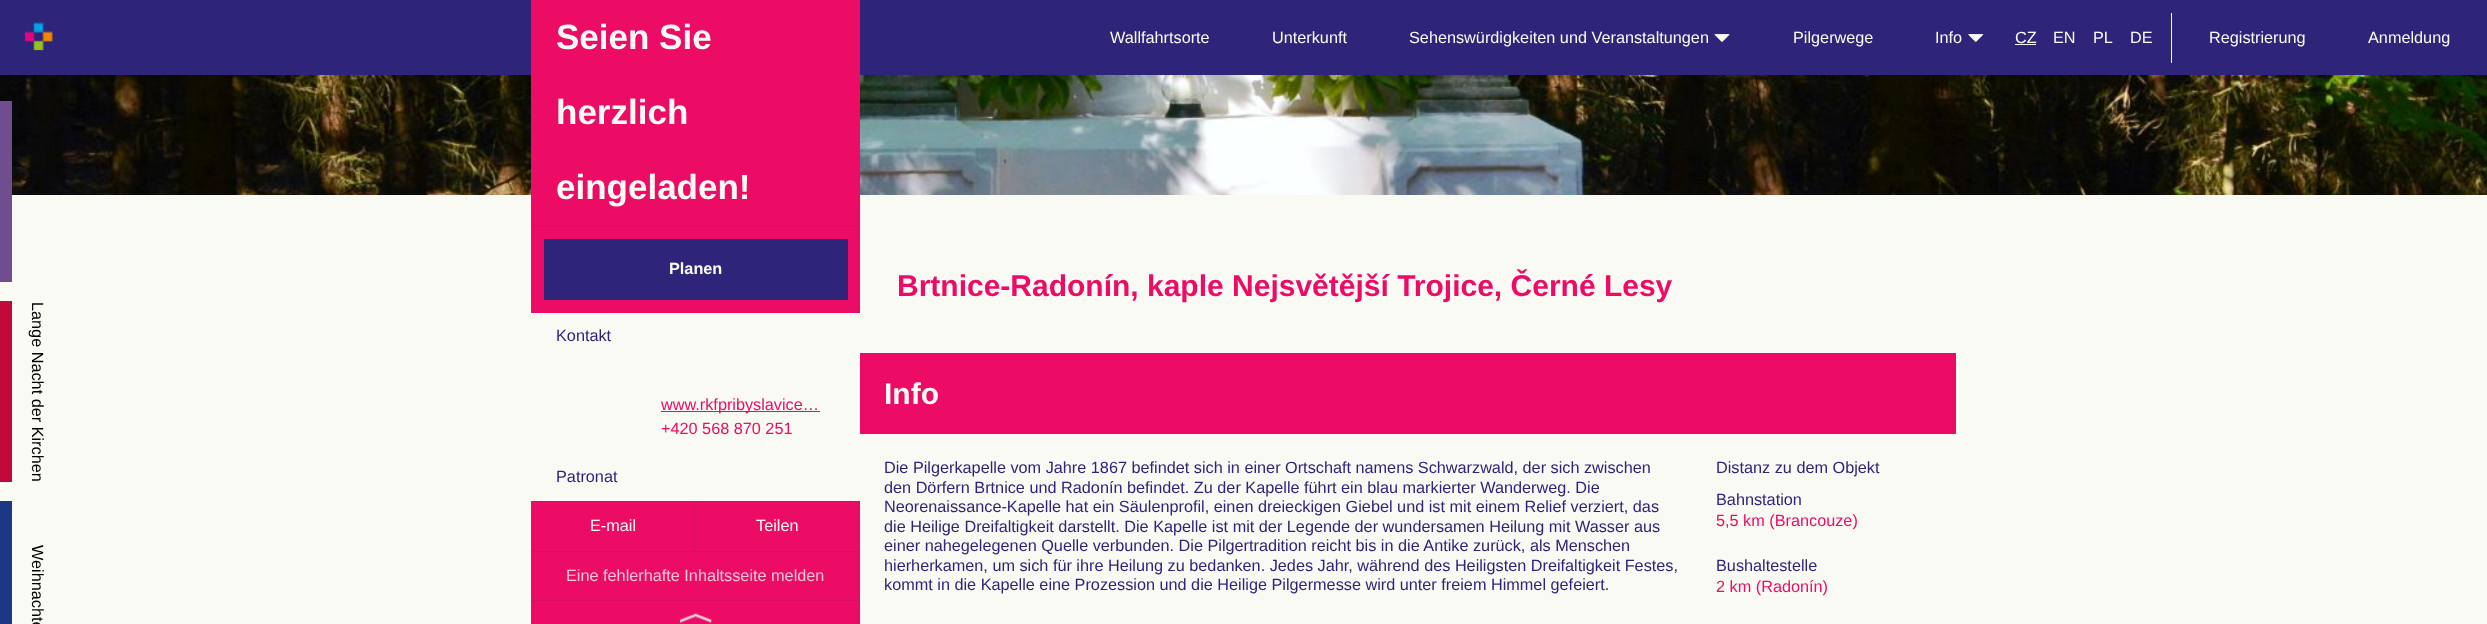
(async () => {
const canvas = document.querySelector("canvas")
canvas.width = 2487
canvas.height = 624
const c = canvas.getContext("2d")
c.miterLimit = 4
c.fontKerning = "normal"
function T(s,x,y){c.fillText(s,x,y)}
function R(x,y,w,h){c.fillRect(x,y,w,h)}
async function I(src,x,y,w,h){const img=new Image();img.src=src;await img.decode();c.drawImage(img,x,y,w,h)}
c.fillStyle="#fafaf4"
R(0,0,2487,624)
c.fillStyle="#2e247a"
R(0,0,2487,75)
await I("1.png",25,22,28,30)
await I("5.png",0,75,2487,120)
c.fillStyle="#ec0c65"
R(531,0,329,624)
c.fillStyle="#d70f5e"
R(531,225,329,1)
c.font="bold 35px Liberation Sans"
c.fillStyle="#fafaf4"
T("Seien Sie",556,49)
T("herzlich",556,124)
T("eingeladen!",556,199)
c.fillStyle="#2e247a"
R(544,239,304,61)
c.font="bold 16.25px Liberation Sans"
c.fillStyle="#fafaf4"
T("Planen",669,274)
R(531,313,329,188)
c.font="16.25px Liberation Sans"
c.fillStyle="#2e247a"
T("Kontakt",556,341)
c.fillStyle="#ec0c65"
R(661,411,159,1)
T("www.rkfpribyslavice…",661,410)
T("+420 568 870 251",661,434)
c.fillStyle="#2e247a"
T("Patronat",556,482)
c.fillStyle="#d70f5e"
R(531,501,329,1)
R(531,551,329,1)
R(694,503,1,48)
c.fillStyle="#fafaf4"
T("E-mail",590,531)
T("Teilen",756,531)
c.fillStyle="#d70f5e"
R(531,600,329,1)
c.fillStyle="#f7cad7"
T("Eine fehlerhafte Inhaltsseite melden",566,581)
await I("2.png",679,613,33,10)
c.fillStyle="#fafaf4"
T("Wallfahrtsorte",1110,43)
T("Unterkunft",1272,43)
T("Sehenswürdigkeiten und Veranstaltungen",1409,43)
await I("3.png",1714,34,16,8)
T("Pilgerwege",1793,43)
T("Info",1935,43)
await I("4.png",1968,34,16,8)
T("CZ",2015,43)
R(2015,44,21,1)
T("EN",2053,43)
T("PL",2093,43)
T("DE",2130,43)
R(2171,13,1,50)
T("Registrierung",2209,43)
T("Anmeldung",2368,43)
c.fillStyle="#704d8f"
R(0,101,12,181)
c.fillStyle="#c00938"
R(0,301,12,181)
c.fillStyle="#000"
c.save()
c.translate(32,302)
c.rotate(90 * Math.PI / 180)
c.fillText("Lange Nacht der Kirchen",0,0)
c.restore()
c.fillStyle="#1c3884"
R(0,501,12,123)
c.fillStyle="#000"
c.save()
c.translate(32,545)
c.rotate(90 * Math.PI / 180)
c.fillText("Weihnachten",0,0)
c.restore()
c.font="bold 30px Liberation Sans"
c.fillStyle="#ec0c65"
T("Brtnice-Radonín, kaple Nejsvětější Trojice, Černé Lesy",897,296)
R(860,353,1096,81)
c.fillStyle="#fafaf4"
T("Info",884,404)
c.font="16.25px Liberation Sans"
c.fillStyle="#2e247a"
T("Die Pilgerkapelle vom Jahre 1867 befindet sich in einer Ortschaft namens Schwarzwald, der sich zwischen",884,473)
T("den Dörfern Brtnice und Radonín befindet. Zu der Kapelle führt ein blau markierter Wanderweg. Die",884,493)
T("Neorenaissance-Kapelle hat ein Säulenprofil, einen dreieckigen Giebel und ist mit einem Relief verziert, das",884,512)
T("die Heilige Dreifaltigkeit darstellt. Die Kapelle ist mit der Legende der wundersamen Heilung mit Wasser aus",884,532)
T("einer nahegelegenen Quelle verbunden. Die Pilgertradition reicht bis in die Antike zurück, als Menschen",884,551)
T("hierherkamen, um sich für ihre Heilung zu bedanken. Jedes Jahr, während des Heiligsten Dreifaltigkeit Festes,",884,571)
T("kommt in die Kapelle eine Prozession und die Heilige Pilgermesse wird unter freiem Himmel gefeiert.",884,590)
T("Distanz zu dem Objekt",1716,473)
T("Bahnstation",1716,505)
c.fillStyle="#ec0c65"
T("5,5 km (Brancouze)",1716,526)
c.fillStyle="#2e247a"
T("Bushaltestelle",1716,571)
c.fillStyle="#ec0c65"
T("2 km (Radonín)",1716,592)
})()
